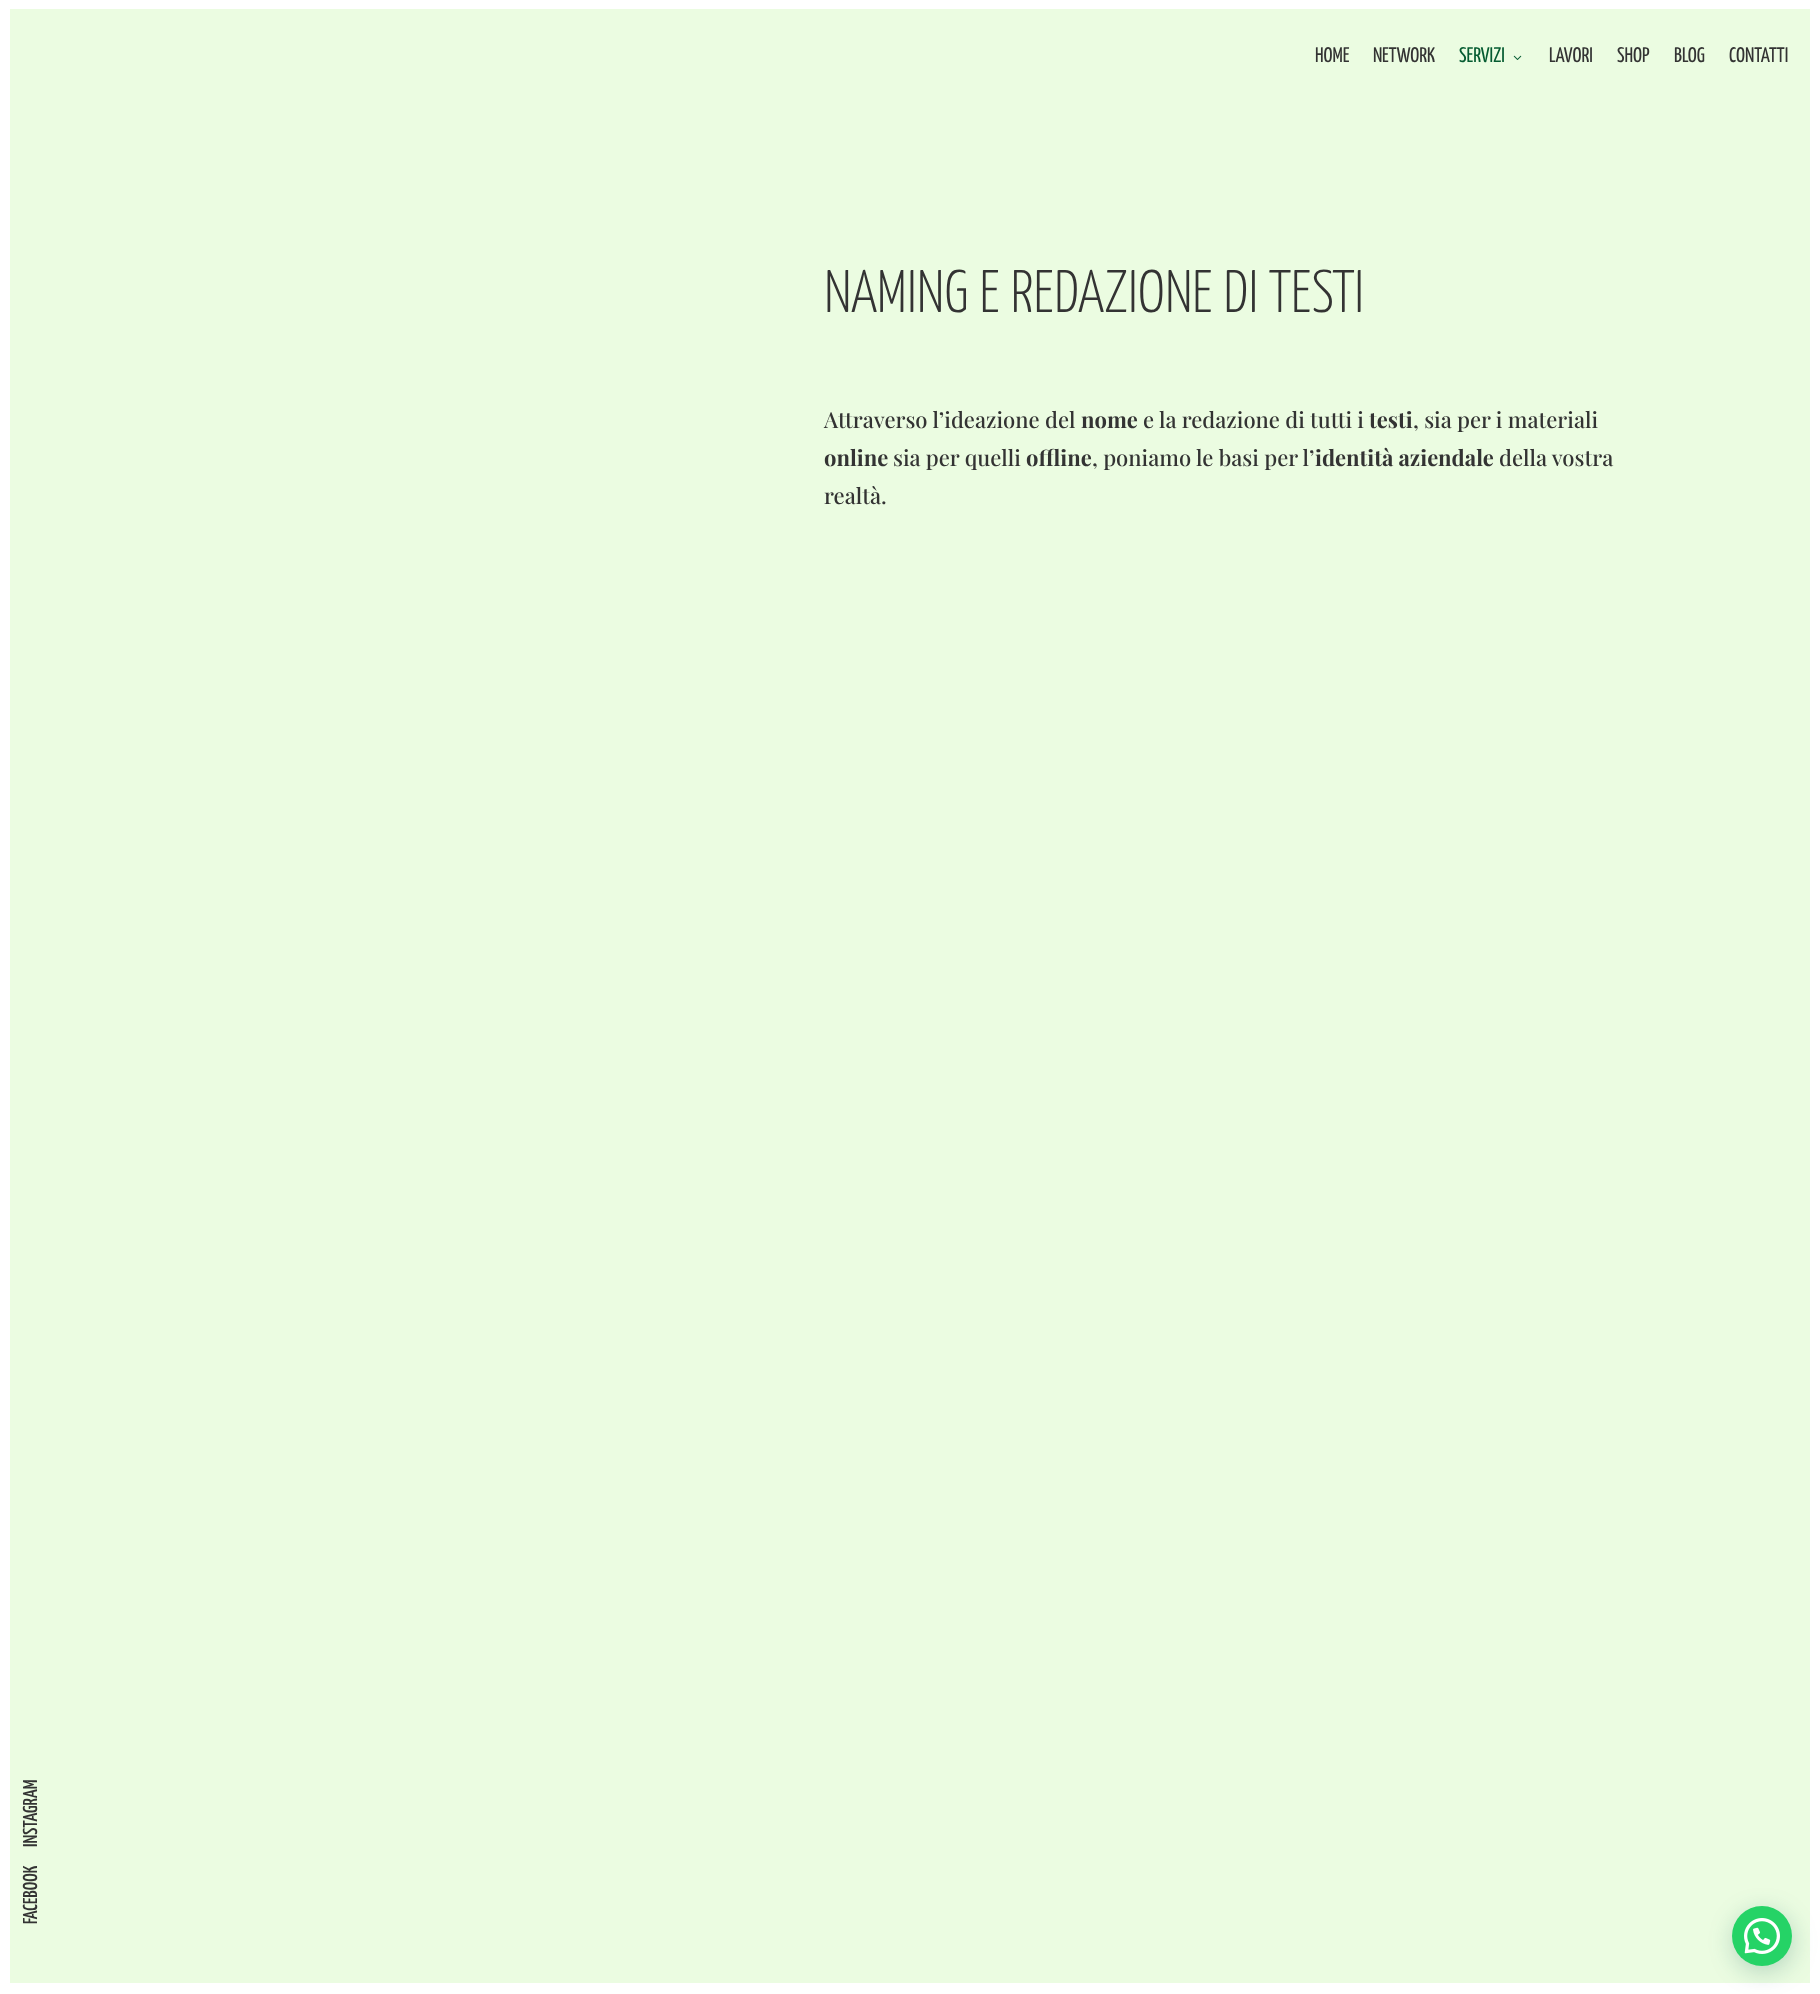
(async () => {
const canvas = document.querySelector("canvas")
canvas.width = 1820
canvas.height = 1994
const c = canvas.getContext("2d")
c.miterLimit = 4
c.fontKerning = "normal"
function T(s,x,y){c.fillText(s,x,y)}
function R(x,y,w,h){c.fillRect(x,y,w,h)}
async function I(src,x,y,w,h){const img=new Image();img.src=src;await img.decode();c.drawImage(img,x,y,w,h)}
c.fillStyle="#fff"
R(0,0,1820,1994)
c.fillStyle="#ebfce1"
R(10,9,1800,1974)
c.font="21px Yanone Kaffeesatz"
c.fillStyle="#333"
T("HOME",1315,62)
T("NETWORK",1373,62)
c.fillStyle="#055b31"
T("SERVIZI",1459,62)
await I("1.png",1513,55,9,5)
c.fillStyle="#333"
T("LAVORI",1549,62)
T("SHOP",1617,62)
T("BLOG",1674,62)
T("CONTATTI",1729,62)
c.font="300 60px Yanone Kaffeesatz"
T("NAMING E REDAZIONE DI TESTI",824,312)
c.font="500 22px Playfair Display"
T("Attraverso l’ideazione del",824,428)
c.font="bold 22px Playfair Display"
T("nome",1081,428)
c.font="500 22px Playfair Display"
T("e la redazione di tutti i",1143,428)
c.font="bold 22px Playfair Display"
T("testi",1369,428)
c.font="500 22px Playfair Display"
T(", sia per i materiali",1413,428)
c.font="bold 22px Playfair Display"
T("online",824,466)
c.font="500 22px Playfair Display"
T("sia per quelli",893,466)
c.font="bold 22px Playfair Display"
T("offline",1026,466)
c.font="500 22px Playfair Display"
T(", poniamo le basi per l’",1092,466)
c.font="bold 22px Playfair Display"
T("identità aziendale",1315,466)
c.font="500 22px Playfair Display"
T("della vostra",1499,466)
T("realtà.",824,504)
c.font="500 20px Yanone Kaffeesatz"
c.save()
c.translate(37,1847)
c.rotate(-90 * Math.PI / 180)
c.fillText("INSTAGRAM",0,0)
c.restore()
c.save()
c.translate(37,1924)
c.rotate(-90 * Math.PI / 180)
c.fillText("FACEBOOK",0,0)
c.restore()
c.fillStyle="#075e543d"
c.filter="blur(12px)"
c.beginPath()
c.roundRect(1733,1912,60,60,30)
c.fill()
c.filter="none"
c.fillStyle="#25d366"
c.beginPath()
c.arc(1762,1936,30,0,7)
c.fill()
await I("2.png",1744,1918,36,36)
})()
